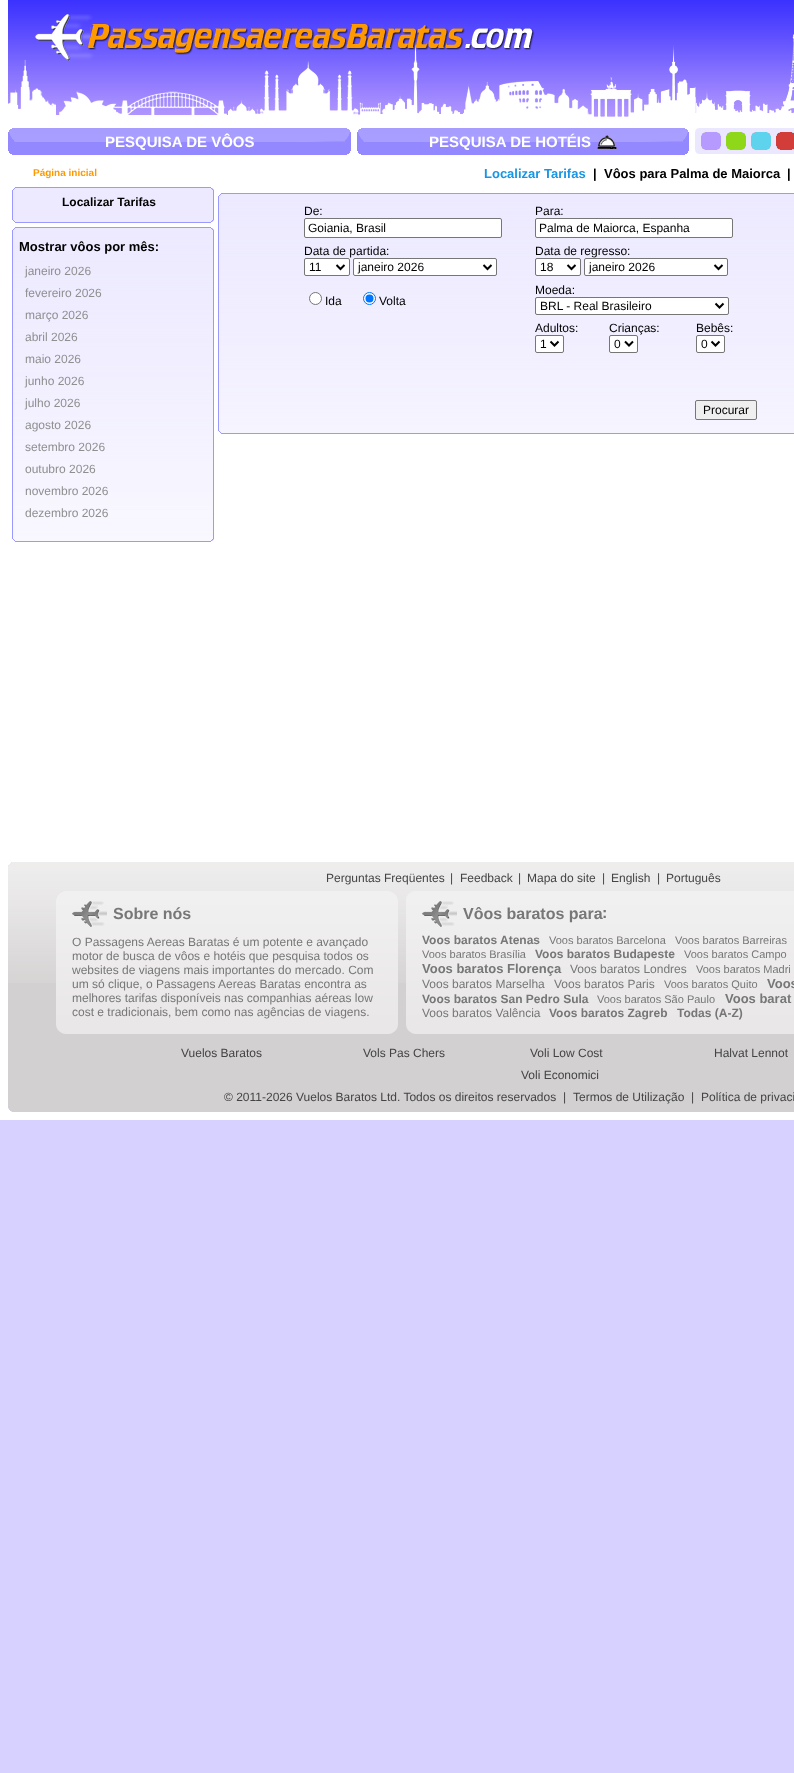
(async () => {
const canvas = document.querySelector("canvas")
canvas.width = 794
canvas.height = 1773
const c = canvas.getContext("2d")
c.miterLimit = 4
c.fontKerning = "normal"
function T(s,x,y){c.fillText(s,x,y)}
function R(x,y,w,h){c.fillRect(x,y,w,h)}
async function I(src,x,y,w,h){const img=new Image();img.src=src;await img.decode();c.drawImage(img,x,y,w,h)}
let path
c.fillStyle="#d6d1ff"
R(0,0,794,1773)
c.fillStyle="#fff"
R(0,0,794,1120)
await I("1.png",8,0,786,117)
await I("2.png",8,34,786,86)
await I("3.png",35,14,500,47)
await I("4.png",8,128,8,27)
await I("5.png",16,128,335,27)
c.font="bold 15px Liberation Sans"
T("PESQUISA DE VÔOS",105,147)
await I("4.png",357,128,8,27)
await I("6.png",365,128,324,27)
await I("7.png",597,135,20,14)
T("PESQUISA DE HOTÉIS",429,147)
c.fillStyle="#ebe7ff"
R(695,128,99,4)
await I("8.png",695,128,4,4)
R(695,132,81,18)
c.fillStyle="#b69aff"
R(701,132,20,18)
await I("9.png",701,132,20,18)
c.fillStyle="#8ed819"
R(726,132,20,18)
await I("10.png",726,132,20,18)
c.fillStyle="#5dd3ee"
R(751,132,20,18)
await I("11.png",751,132,20,18)
c.fillStyle="#d33d39"
R(776,132,18,18)
await I("12.png",776,132,18,18)
c.fillStyle="#ebe7ff"
R(695,150,99,4)
await I("13.png",695,150,4,4)
c.font="bold 10px Liberation Sans"
c.fillStyle="#f90"
T("Página inicial",33,176)
c.font="bold 13px Liberation Sans"
c.fillStyle="#1896e5"
T("Localizar Tarifas",484,178)
c.fillStyle="#000"
T("|",593,178)
T("Vôos para Palma de Maiorca",604,178)
T("|",787,178)
c.fillStyle="#edeaff"
R(13,188,200,34)
await I("14.png",12,187,199,6)
await I("15.png",211,187,3,6)
c.fillStyle="#99f"
R(213,193,1,24)
R(12,193,1,24)
c.font="bold 12px Liberation Sans"
c.fillStyle="#000"
T("Localizar Tarifas",62,206)
await I("16.png",12,217,199,6)
await I("17.png",211,217,3,6)
await I("18.png",13,228,200,313)
await I("14.png",12,227,199,6)
await I("15.png",211,227,3,6)
c.fillStyle="#99f"
R(213,233,1,303)
R(12,233,1,303)
c.font="bold 13px Liberation Sans"
c.fillStyle="#000"
T("Mostrar vôos por mês:",19,251)
c.font="12px Liberation Sans"
c.fillStyle="#8f8f8f"
T("janeiro 2026",25,275)
T("fevereiro 2026",25,297)
T("março 2026",25,319)
T("abril 2026",25,341)
T("maio 2026",25,363)
T("junho 2026",25,385)
T("julho 2026",25,407)
T("agosto 2026",25,429)
T("setembro 2026",25,451)
T("outubro 2026",25,473)
T("novembro 2026",25,495)
T("dezembro 2026",25,517)
await I("19.png",12,536,199,6)
await I("20.png",211,536,3,6)
await I("21.png",219,194,575,239)
await I("22.png",218,193,576,6)
c.fillStyle="#99f"
R(218,199,1,229)
c.fillStyle="#000"
T("De:",304,215)
c.fillStyle="#fff"
c.beginPath()
c.roundRect(304.5,218.5,197,19,1.5)
c.fill()
c.strokeStyle="#767676"
c.stroke()
c.fillStyle="#000"
T("Goiania, Brasil",308,232)
T("Para:",535,215)
c.fillStyle="#fff"
c.beginPath()
c.roundRect(535.5,218.5,197,19,1.5)
c.fill()
c.stroke()
c.fillStyle="#000"
T("Palma de Maiorca, Espanha",539,232)
T("Data de partida:",304,255)
c.fillStyle="#fff"
c.beginPath()
c.roundRect(304.5,258.5,45,17,1.5)
c.fill()
c.stroke()
path = new Path2D("M336.5 265l4 4l4-4")
c.strokeStyle="#000"
c.lineWidth=2
c.stroke(path)
c.fillStyle="#000"
T("11",309,271)
c.fillStyle="#fff"
c.beginPath()
c.roundRect(353.5,258.5,143,17,1.5)
c.fill()
c.strokeStyle="#767676"
c.lineWidth=1
c.stroke()
path = new Path2D("M483.5 265l4 4l4-4")
c.strokeStyle="#000"
c.lineWidth=2
c.stroke(path)
c.fillStyle="#000"
T("janeiro 2026",358,271)
T("Data de regresso:",535,255)
c.fillStyle="#fff"
c.beginPath()
c.roundRect(535.5,258.5,45,17,1.5)
c.fill()
c.strokeStyle="#767676"
c.lineWidth=1
c.stroke()
path = new Path2D("M567.5 265l4 4l4-4")
c.strokeStyle="#000"
c.lineWidth=2
c.stroke(path)
c.fillStyle="#000"
T("18",540,271)
c.fillStyle="#fff"
c.beginPath()
c.roundRect(584.5,258.5,143,17,1.5)
c.fill()
c.strokeStyle="#767676"
c.lineWidth=1
c.stroke()
path = new Path2D("M714.5 265l4 4l4-4")
c.strokeStyle="#000"
c.lineWidth=2
c.stroke(path)
c.fillStyle="#000"
T("janeiro 2026",589,271)
c.fillStyle="#fff"
c.beginPath()
c.arc(315.5,298.5,6,0,7)
c.fill()
c.strokeStyle="#767676"
c.lineWidth=1
c.stroke()
c.fillStyle="#000"
T("Ida",325,305)
c.fillStyle="#fff"
c.beginPath()
c.arc(369.5,298.5,6,0,7)
c.fill()
c.strokeStyle="#0075ff"
c.stroke()
c.fillStyle="#0075ff"
c.beginPath()
c.arc(369.5,298.5,4,0,7)
c.fill()
c.fillStyle="#000"
T("Volta",379,305)
T("Moeda:",535,294)
c.fillStyle="#fff"
c.beginPath()
c.roundRect(535.5,297.5,193,17,1.5)
c.fill()
c.strokeStyle="#767676"
c.stroke()
path = new Path2D("M715.5 303.5l4 4l4-4")
c.strokeStyle="#000"
c.lineWidth=2
c.stroke(path)
c.fillStyle="#000"
T("BRL - Real Brasileiro",540,310)
T("Adultos:",535,332)
c.fillStyle="#fff"
c.beginPath()
c.roundRect(535.5,335.5,28,17,1.5)
c.fill()
c.strokeStyle="#767676"
c.lineWidth=1
c.stroke()
path = new Path2D("M550.5 341.5l4 4l4-4")
c.strokeStyle="#000"
c.lineWidth=2
c.stroke(path)
c.fillStyle="#000"
T("1",540,348)
T("Crianças:",609,332)
c.fillStyle="#fff"
c.beginPath()
c.roundRect(609.5,335.5,28,17,1.5)
c.fill()
c.strokeStyle="#767676"
c.lineWidth=1
c.stroke()
path = new Path2D("M625 341.5l4 4l4-4")
c.strokeStyle="#000"
c.lineWidth=2
c.stroke(path)
c.fillStyle="#000"
T("0",614,348)
T("Bebês:",696,332)
c.fillStyle="#fff"
c.beginPath()
c.roundRect(696.5,335.5,28,17,1.5)
c.fill()
c.strokeStyle="#767676"
c.lineWidth=1
c.stroke()
path = new Path2D("M711.5 341.5l4 4l4-4")
c.strokeStyle="#000"
c.lineWidth=2
c.stroke(path)
c.fillStyle="#000"
T("0",701,348)
c.fillStyle="#efefef"
c.beginPath()
c.roundRect(695.5,400.5,61,19,1.5)
c.fill()
c.strokeStyle="#767676"
c.lineWidth=1
c.stroke()
c.fillStyle="#000"
T("Procurar",703,414)
await I("23.png",218,428,576,6)
c.fillStyle="#d2d0d0"
R(8,983,786,129)
await I("24.png",8,862,786,121)
await I("25.png",8,862,4,4)
c.fillStyle="#444"
T("Perguntas Freqüentes",326,882)
T("|",450,882)
T("Feedback",460,882)
T("|",518,882)
T("Mapa do site",527,882)
T("|",602,882)
T("English",611,882)
T("|",657,882)
T("Português",666,882)
await I("26.png",56,891,342,129)
await I("27.png",72,901,35,26)
c.font="bold 16px Liberation Sans"
c.fillStyle="#777778"
T("Sobre nós",113,919)
c.font="12px Liberation Sans"
T("O Passagens Aereas Baratas é um potente e avançado",72,946)
T("motor de busca de vôos e hotéis que pesquisa todos os",72,960)
T("websites de viagens mais importantes do mercado. Com",72,974)
T("um só clique, o Passagens Aereas Baratas encontra as",72,988)
T("melhores tarifas disponíveis nas companhias aéreas low",72,1002)
T("cost e tradicionais, bem como nas agências de viagens.",72,1016)
await I("28.png",406,891,388,129)
await I("27.png",422,901,35,26)
c.font="bold 16px Liberation Sans"
T("Vôos baratos para",463,919)
T(":",602,918)
c.font="bold 12px Liberation Sans"
T("Voos baratos Atenas",422,944)
c.font="11px Liberation Sans"
T("Voos baratos Barcelona",549,944)
T("Voos baratos Barreiras",675,944)
T("Voos baratos Brasília",422,958)
c.font="bold 12px Liberation Sans"
T("Voos baratos Budapeste",535,958)
c.font="11px Liberation Sans"
T("Voos baratos Campo",684,958)
c.font="bold 13px Liberation Sans"
T("Voos baratos Florença",422,973)
c.font="12px Liberation Sans"
T("Voos baratos Londres",570,973)
c.font="11px Liberation Sans"
T("Voos baratos Madri",696,973)
c.font="12px Liberation Sans"
T("Voos baratos Marselha",422,988)
T("Voos baratos Paris",554,988)
c.font="11px Liberation Sans"
T("Voos baratos Quito",664,988)
c.font="bold 13px Liberation Sans"
T("Voos",767,988)
c.font="bold 12px Liberation Sans"
T("Voos baratos San Pedro Sula",422,1003)
c.font="11px Liberation Sans"
T("Voos baratos São Paulo",597,1003)
c.font="bold 13px Liberation Sans"
T("Voos barat",725,1003)
c.font="12px Liberation Sans"
T("Voos baratos Valência",422,1017)
c.font="bold 12px Liberation Sans"
T("Voos baratos Zagreb",549,1017)
T("Todas (A-Z)",677,1017)
await I("29.png",56,1020,342,14)
await I("30.png",406,1020,388,14)
c.font="12px Liberation Sans"
c.fillStyle="#444"
T("Vuelos Baratos",181,1057)
T("Vols Pas Chers",363,1057)
T("Voli Low Cost",530,1057)
T("Halvat Lennot",714,1057)
T("Voli Economici",521,1079)
T("© 2011-2026 Vuelos Baratos Ltd. Todos os direitos reservados",224,1101)
T("|",563,1101)
T("Termos de Utilização",573,1101)
T("|",691,1101)
T("Política de privaci",701,1101)
await I("31.png",8,1108,4,4)
})()
